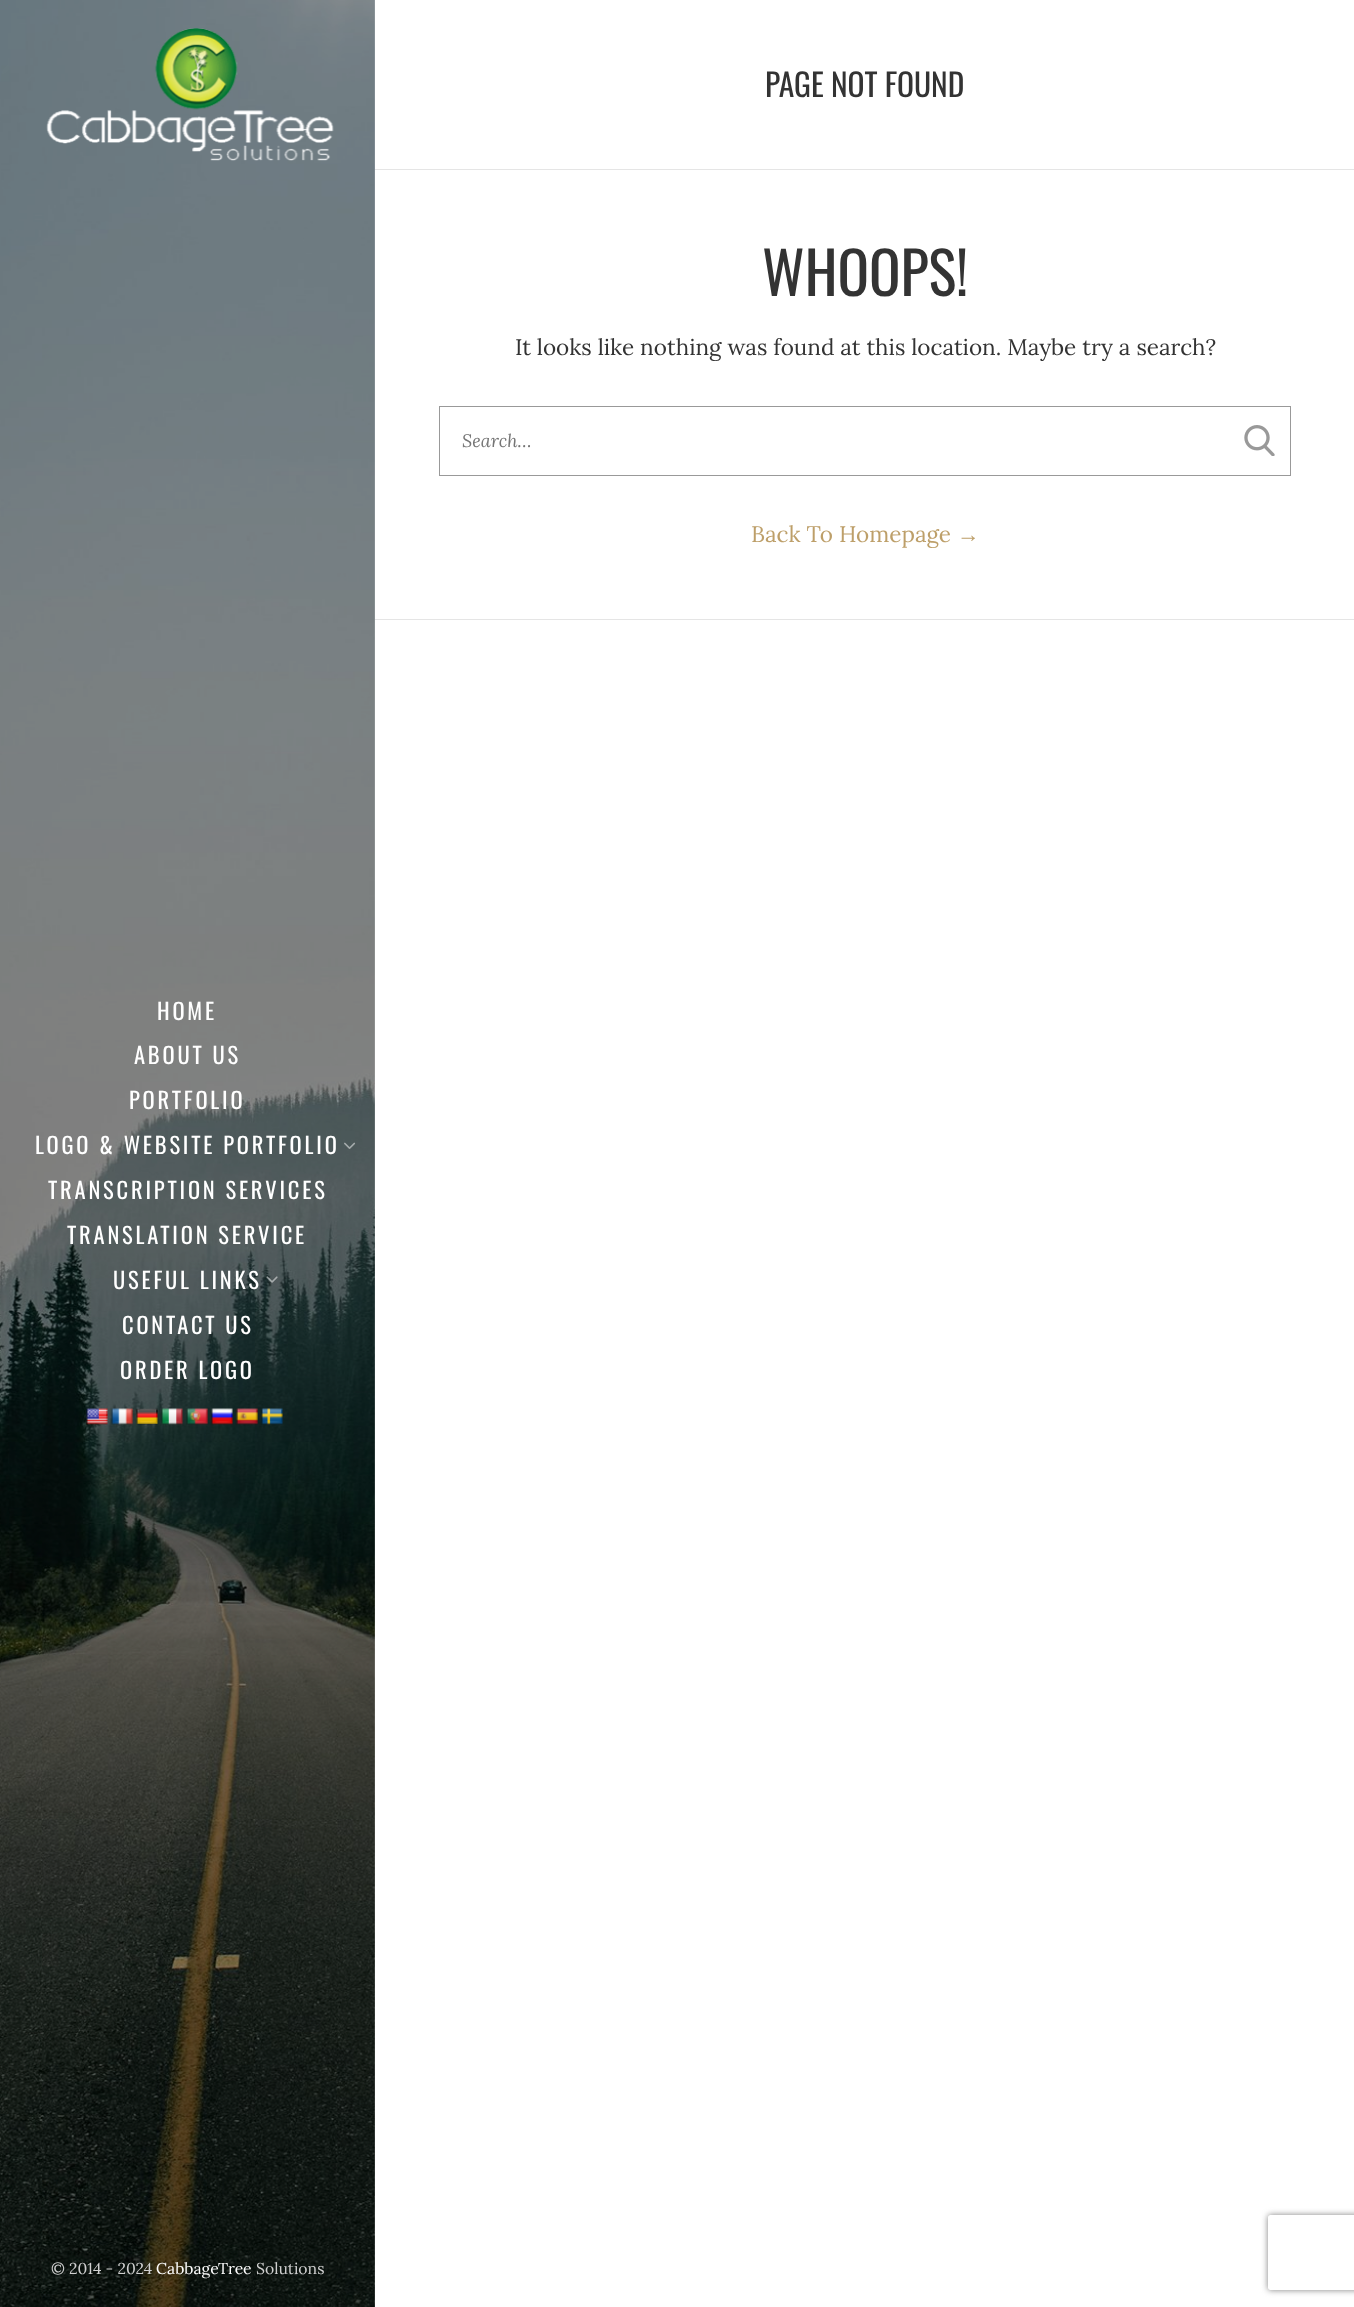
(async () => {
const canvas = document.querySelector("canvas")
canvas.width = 1354
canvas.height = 2307
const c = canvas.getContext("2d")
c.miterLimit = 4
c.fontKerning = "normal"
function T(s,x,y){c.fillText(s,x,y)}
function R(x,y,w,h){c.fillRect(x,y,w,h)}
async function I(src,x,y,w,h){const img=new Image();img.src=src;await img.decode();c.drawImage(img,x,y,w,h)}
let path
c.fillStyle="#fff"
R(0,0,1354,2307)
c.fillStyle="#e5e5e5"
R(375,619,979,1)
R(375,169,979,1)
c.font="31.5px Oswald"
c.fillStyle="#333"
T("PAGE NOT FOUND",765,97)
c.font="58.5px Oswald"
T("WHOOPS!",762,296)
c.font="22.5px Lora"
T("It looks like nothing was found at this location. Maybe try a search?",515,355)
c.strokeStyle="#999"
c.strokeRect(439.5,406.5,851,69)
c.font="italic 18px Lora"
c.fillStyle="#757575"
T("Search…",462,447)
await I("1.png",1244,425,31,31)
c.font="22.5px Lora"
c.fillStyle="#bd9f69"
T("Back To Homepage",751,542)
c.font="22.5px Liberation Serif"
T("→",957,542)
await I("2.png",0,0,375,2307)
await I("3.png",46,28,288,133)
c.letterSpacing="2.8px"
c.font="22.5px Oswald"
c.fillStyle="#fff"
T("HOME",157,1020)
T("ABOUT US",134,1064)
T("PORTFOLIO",129,1109)
T("LOGO & WEBSITE PORTFOLIO",35,1154)
await I("4.png",344,1142,12,7)
T("TRANSCRIPTION SERVICES",48,1199)
T("TRANSLATION SERVICE",67,1244)
T("USEFUL LINKS",113,1289)
await I("5.png",266,1276,12,7)
T("CONTACT US",122,1334)
T("ORDER LOGO",120,1379)
await I("6.png",86,1408,22,17)
await I("7.png",110,1408,23,17)
await I("8.png",136,1408,22,17)
await I("9.png",161,1408,22,17)
await I("10.png",186,1408,22,17)
await I("11.png",211,1408,22,17)
await I("12.png",235,1408,23,17)
await I("13.png",261,1408,22,17)
c.letterSpacing="0px"
c.font="15.75px Lora"
c.fillStyle="#d0d0d0"
T("© 2014 - 2024",51,2274)
c.fillStyle="#fff"
T("CabbageTree",156,2274)
c.fillStyle="#d0d0d0"
T("Solutions",256,2274)
c.save()
path = new Path2D("M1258 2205h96v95h-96zm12.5 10h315c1.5 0 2.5 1 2.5 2.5v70c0 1.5-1 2.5-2.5 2.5h-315c-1.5 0-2.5-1-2.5-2.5v-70c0-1.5 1-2.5 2.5-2.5z")
c.clip(path,"evenodd")
c.fillStyle="#808080"
c.filter="blur(3px)"
c.beginPath()
c.roundRect(1268,2215,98,75,2.5)
c.fill()
c.filter="none"
c.restore()
})()
